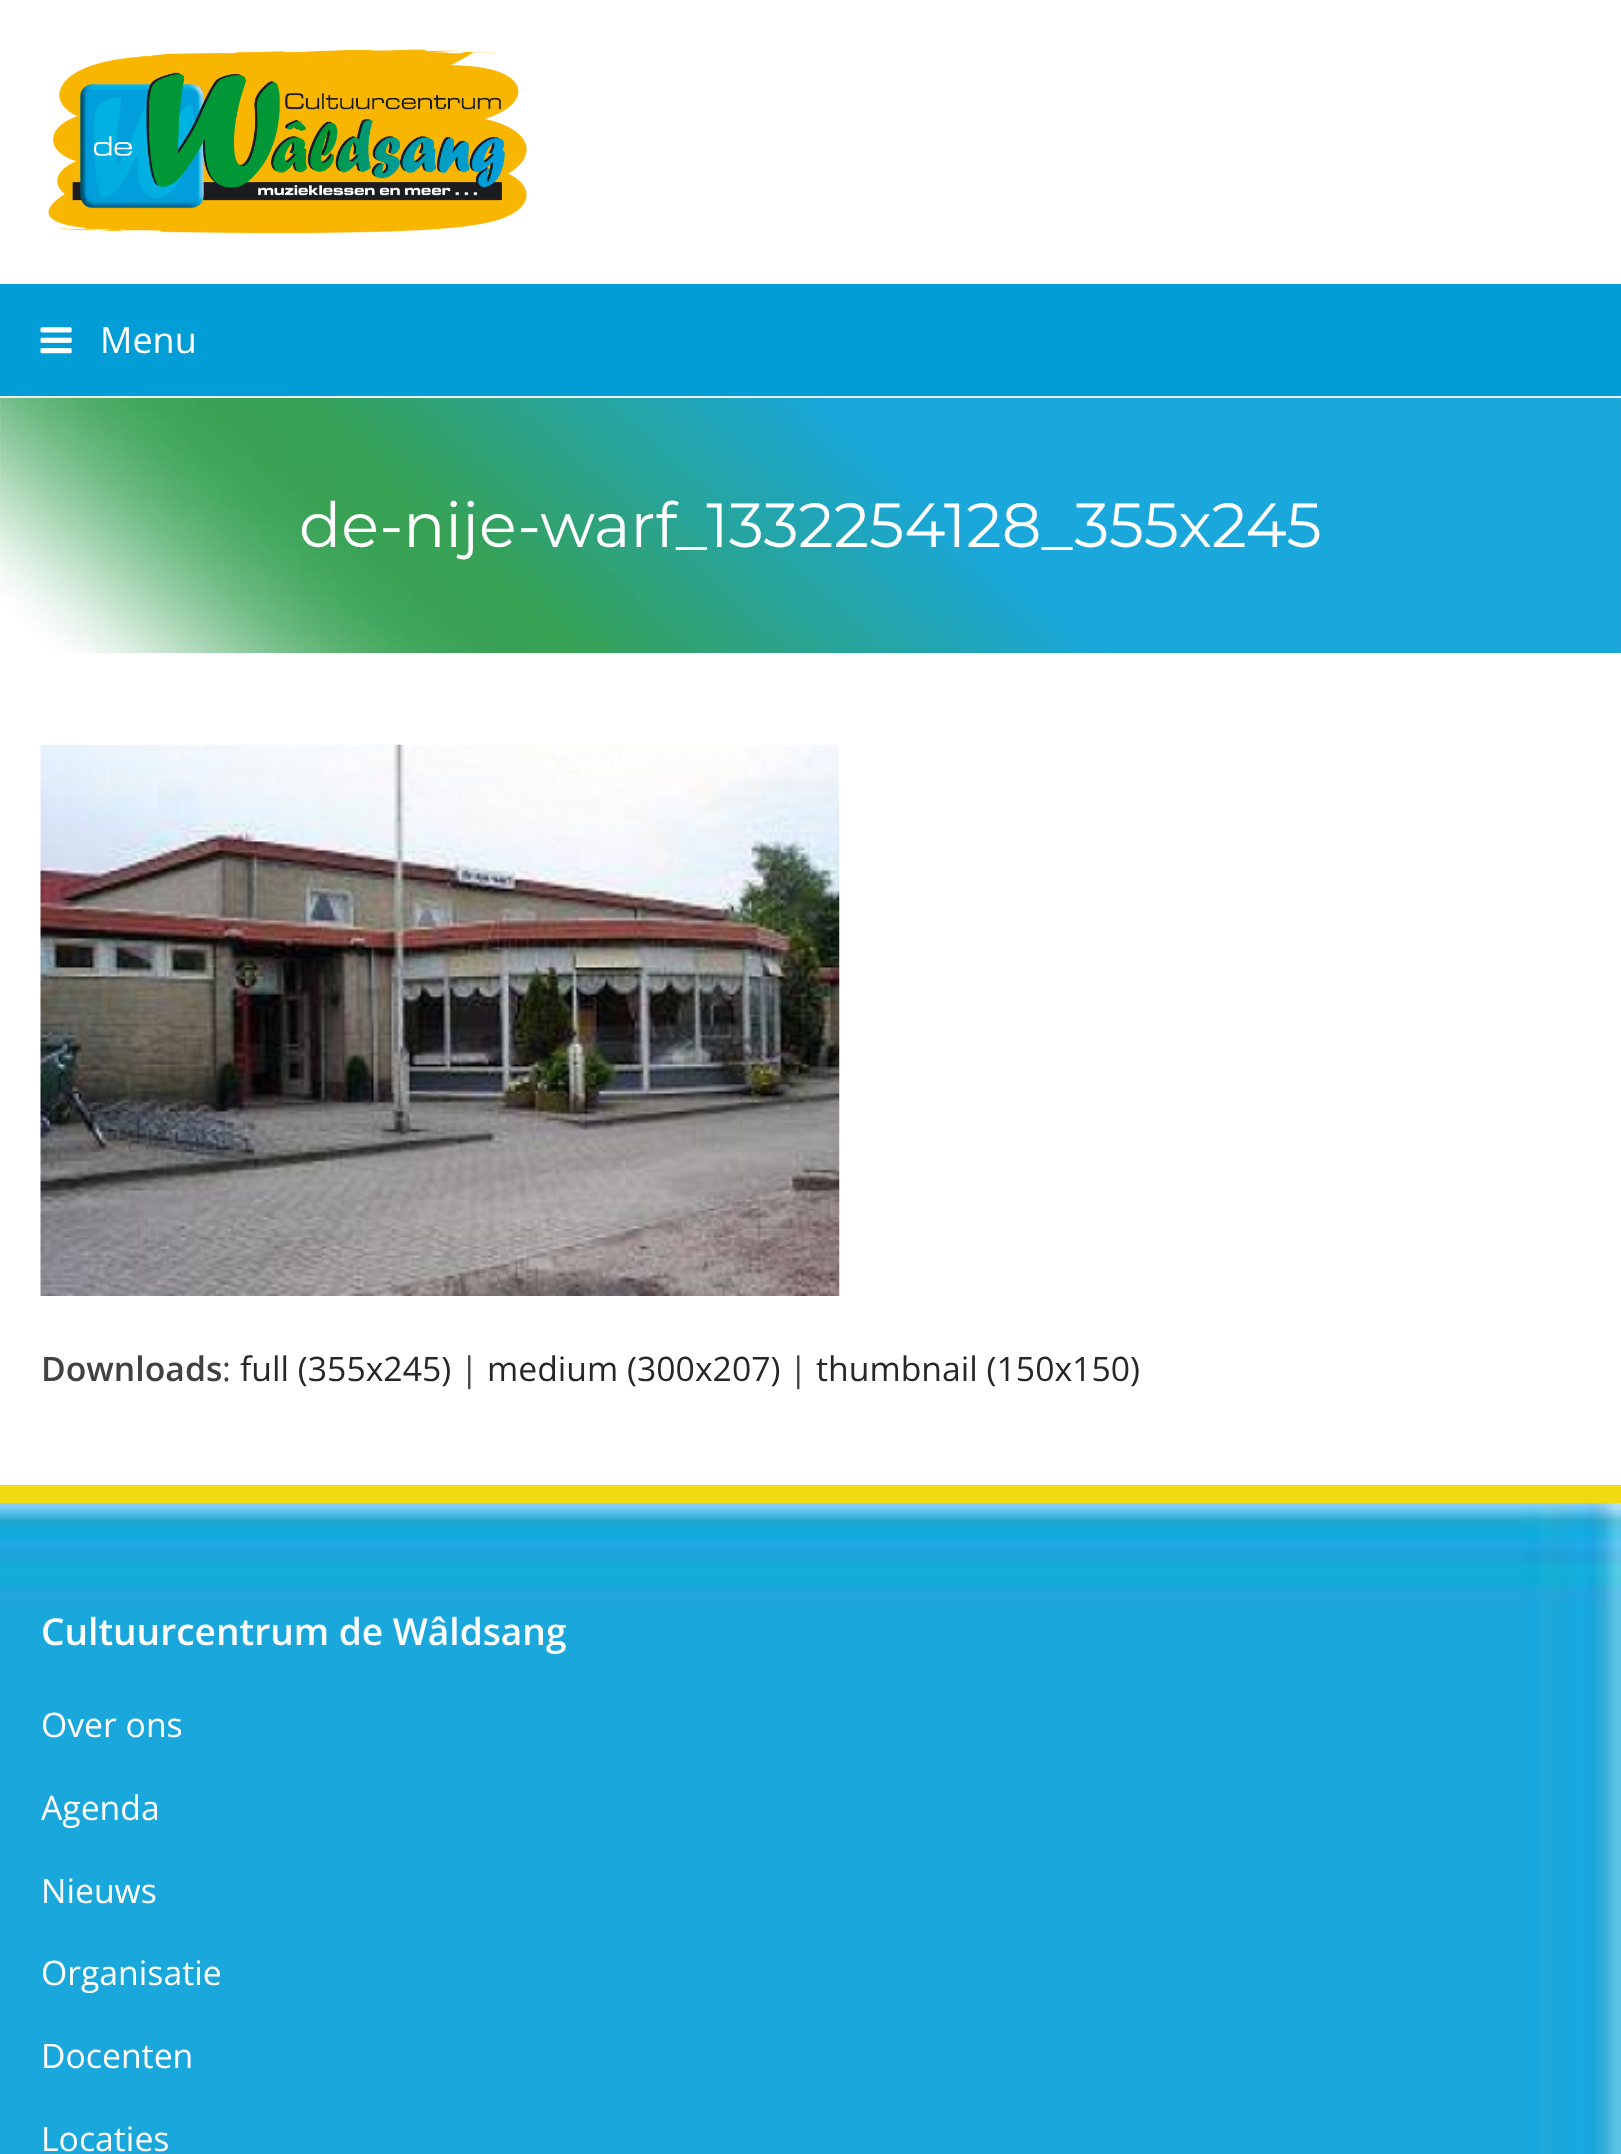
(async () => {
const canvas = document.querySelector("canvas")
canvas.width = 1621
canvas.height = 2154
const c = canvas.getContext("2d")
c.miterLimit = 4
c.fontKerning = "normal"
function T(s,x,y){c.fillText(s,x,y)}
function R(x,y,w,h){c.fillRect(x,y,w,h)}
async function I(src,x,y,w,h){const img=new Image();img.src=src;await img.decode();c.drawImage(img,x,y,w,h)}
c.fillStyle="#fff"
R(0,0,1621,2154)
await I("1.png",48,49,479,185)
c.fillStyle="#009dd7"
R(0,284,1621,112)
await I("2.png",40,327,32,27)
c.font="36px Open Sans"
c.fillStyle="#fff"
T("Menu",100,353)
await I("3.png",0,398,1621,255)
c.fillStyle="#eee"
R(0,396,1621,2)
c.font="62.25px Montserrat"
c.fillStyle="#fff"
T("de-nije-warf_1332254128_355x245",299,547)
await I("4.png",40,744,800,552)
c.font="600 33.75px Open Sans"
c.fillStyle="#414141"
T("Downloads",41,1381)
c.font="33.75px Open Sans"
T(":",222,1381)
c.fillStyle="#272727"
T("full (355x245)",240,1381)
c.fillStyle="#414141"
T("|",460,1381)
c.fillStyle="#272727"
T("medium (300x207)",487,1381)
c.fillStyle="#414141"
T("|",789,1381)
c.fillStyle="#272727"
T("thumbnail (150x150)",816,1381)
await I("5.png",0,1503,1621,651)
c.fillStyle="#f1db10"
R(0,1485,1621,18)
c.font="600 37.1px Open Sans"
c.fillStyle="#fff"
T("Cultuurcentrum de Wâldsang",41,1645)
c.font="33.75px Open Sans"
T("Over ons",41,1737)
T("Agenda",41,1820)
T("Nieuws",41,1903)
T("Organisatie",41,1985)
T("Docenten",41,2068)
T("Locaties",41,2151)
})()
